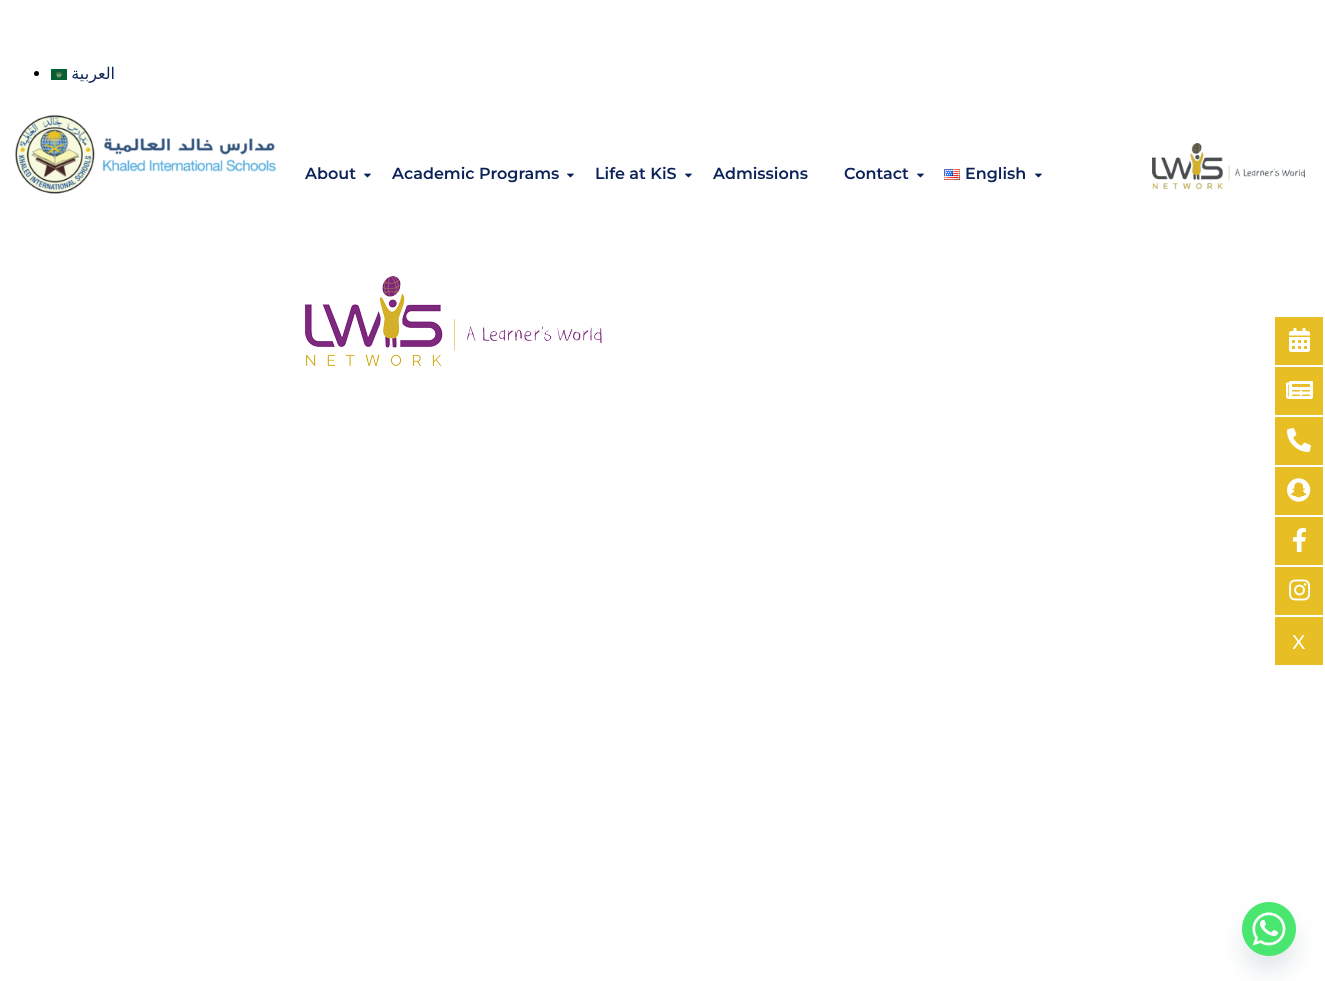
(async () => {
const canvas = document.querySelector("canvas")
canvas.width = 1325
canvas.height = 981
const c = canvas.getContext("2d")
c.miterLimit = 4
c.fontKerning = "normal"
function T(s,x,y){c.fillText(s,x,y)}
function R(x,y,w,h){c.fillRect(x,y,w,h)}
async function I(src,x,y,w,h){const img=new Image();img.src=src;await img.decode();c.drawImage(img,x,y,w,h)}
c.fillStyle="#fff"
R(0,0,1325,981)
c.fillStyle="#000"
c.beginPath()
c.arc(36.5,73.5,2.5,0,7)
c.fill()
await I("1.png",51,69,16,11)
c.direction="rtl"
c.font="16px DejaVu Sans"
c.fillStyle="#0b2259"
T("العربية",115,79)
await I("2.png",15,114,262,80)
c.direction="ltr"
c.font="600 16px Montserrat"
T("About",305,179)
await I("3.png",364,173,7,5)
T("Academic Programs",392,179)
await I("3.png",567,173,7,5)
T("Life at KiS",595,179)
await I("3.png",685,173,7,5)
T("Admissions",713,179)
T("Contact",844,179)
await I("3.png",917,173,7,5)
await I("4.png",944,169,16,11)
T("English",965,179)
await I("3.png",1035,173,7,5)
await I("5.png",305,276,297,90)
await I("6.png",1152,143,153,46)
c.fillStyle="#e7bf25"
R(1275,317,48,48)
await I("7.png",1289,328,21,24)
R(1275,367,48,48)
await I("8.png",1286,381,27,18)
R(1275,417,48,48)
await I("9.png",1287,428,24,24)
R(1275,467,48,48)
await I("10.png",1287,478,24,24)
R(1275,517,48,48)
await I("11.png",1293,528,13,24)
R(1275,567,48,48)
await I("12.png",1289,579,22,22)
R(1275,617,48,48)
c.font="20px Liberation Sans"
c.fillStyle="#fff"
T("X",1292,649)
c.fillStyle="#49687e29"
c.filter="blur(12px)"
c.beginPath()
c.roundRect(1242,918,54,54,27)
c.fill()
c.filter="none"
await I("13.png",1242,902,54,54)
})()
